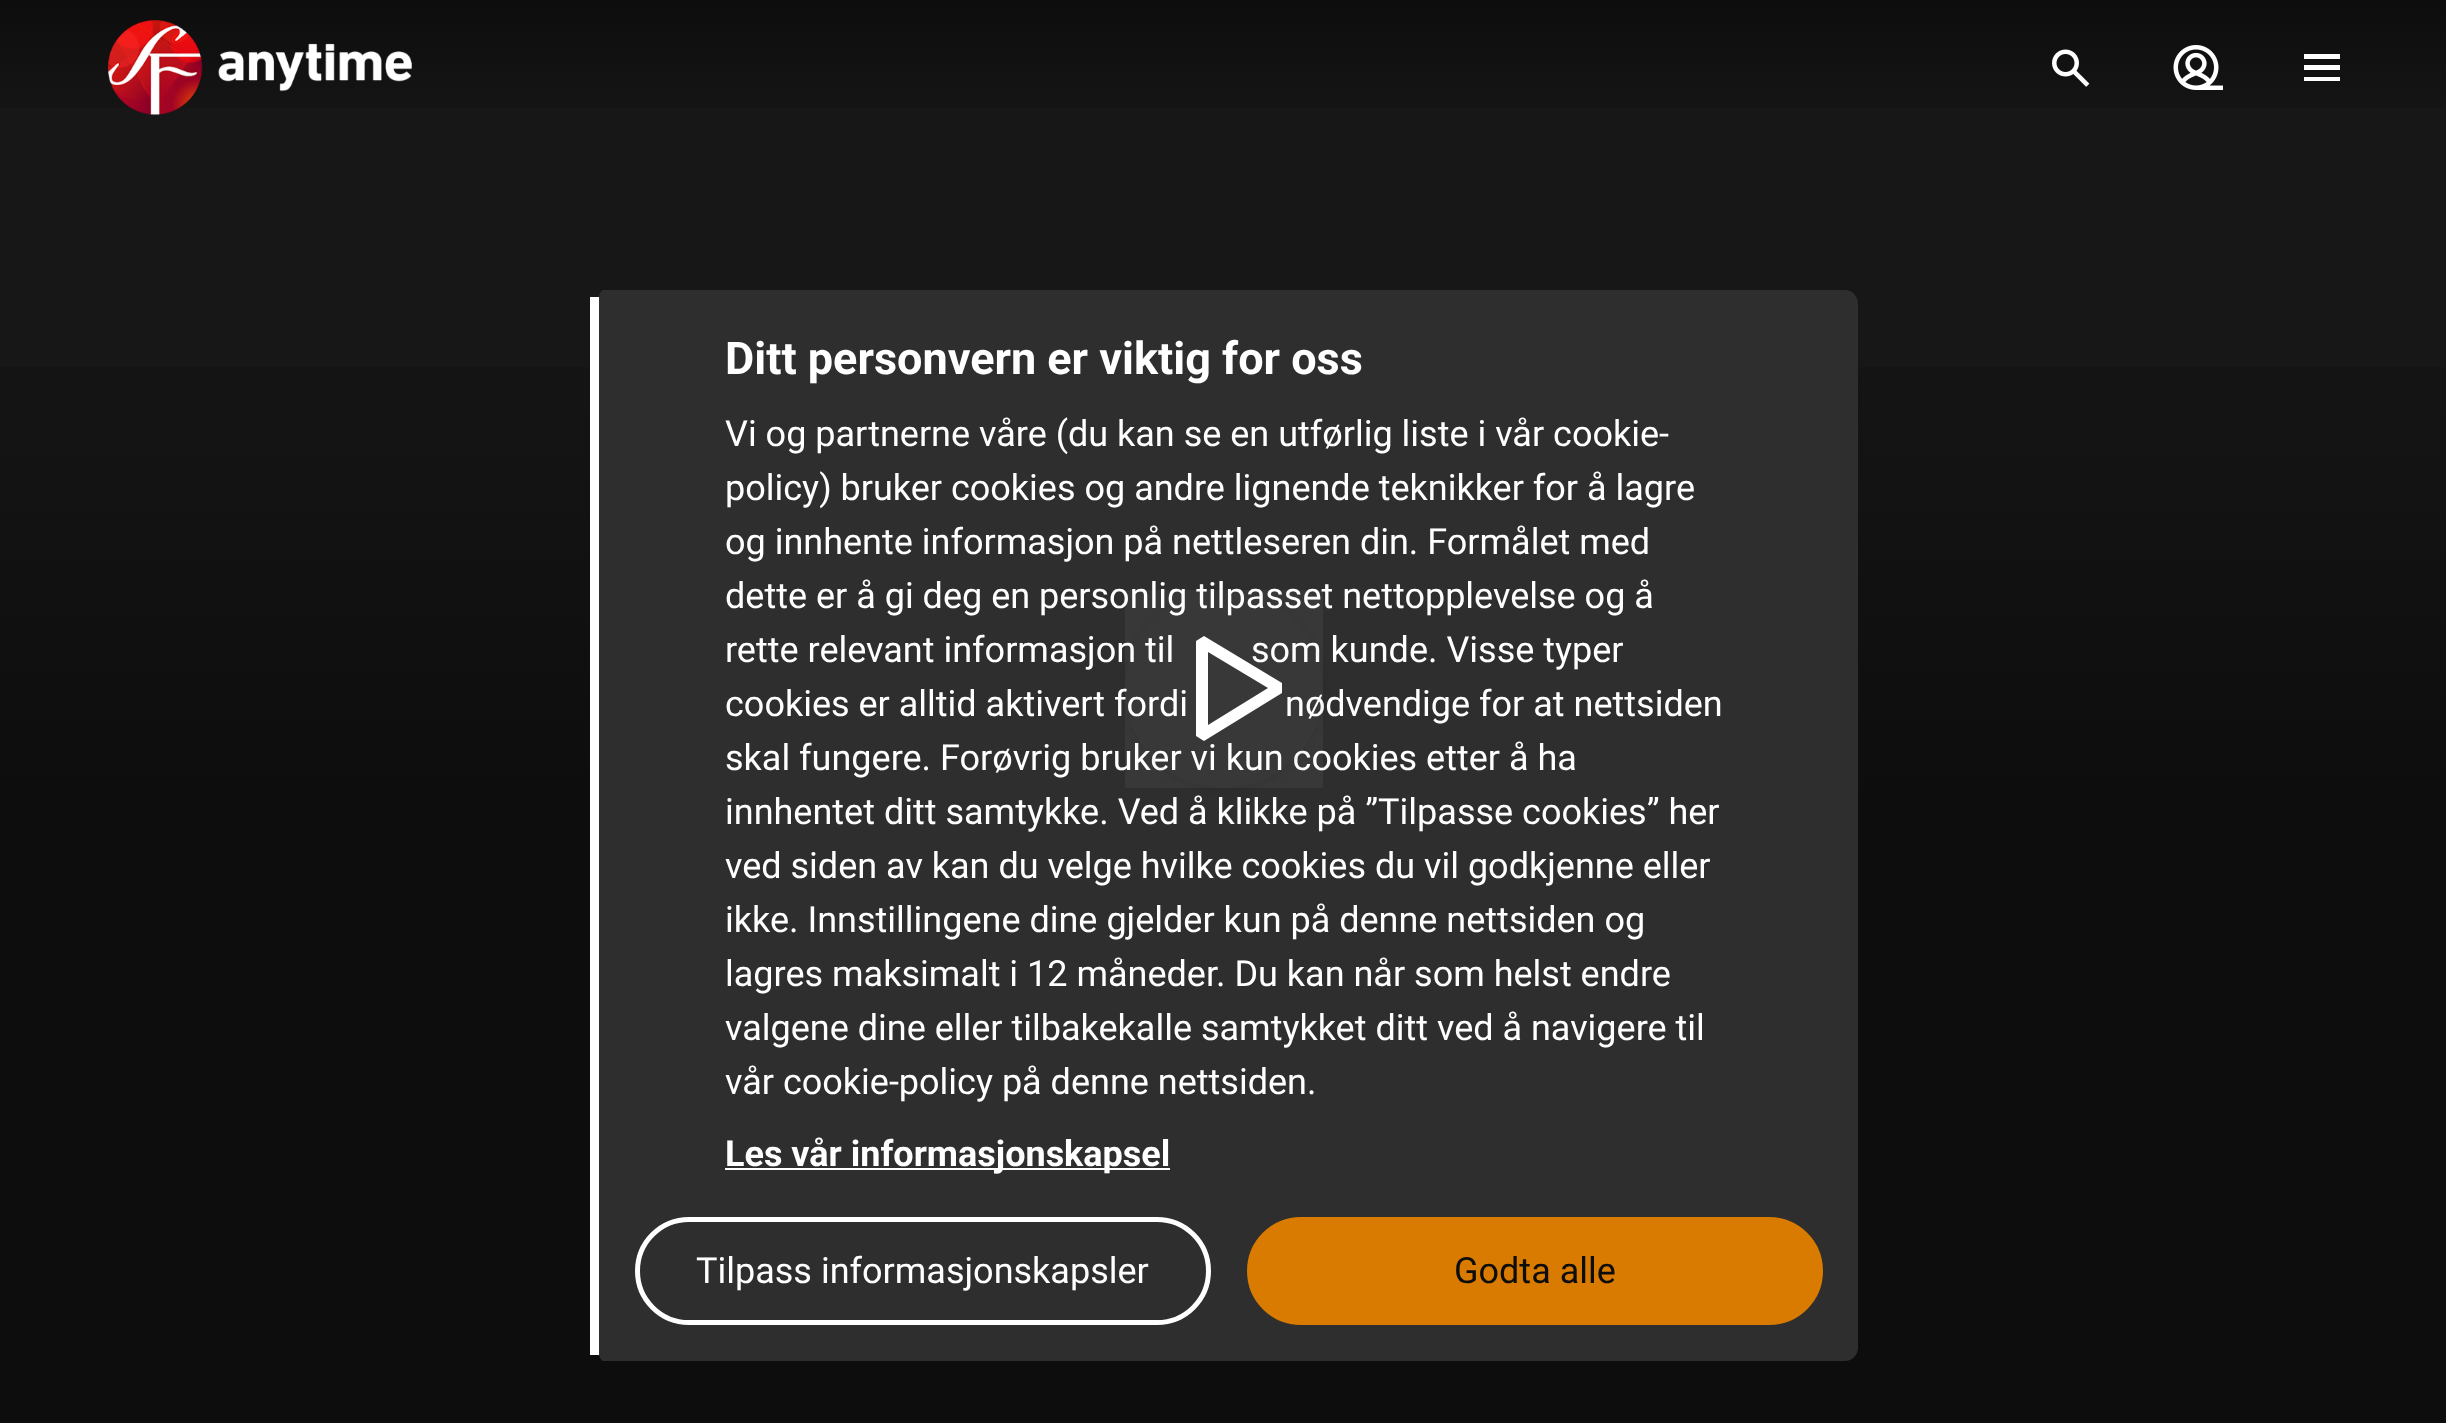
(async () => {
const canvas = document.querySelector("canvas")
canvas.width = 2446
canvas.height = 1423
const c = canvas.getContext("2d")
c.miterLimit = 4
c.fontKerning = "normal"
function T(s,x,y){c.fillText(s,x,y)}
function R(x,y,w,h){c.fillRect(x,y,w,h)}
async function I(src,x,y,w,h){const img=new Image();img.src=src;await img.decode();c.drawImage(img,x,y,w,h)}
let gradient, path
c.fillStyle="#171717"
R(0,0,2446,1423)
gradient = c.createLinearGradient(1224,144,1224,0)
gradient.addColorStop(0,"#171717")
gradient.addColorStop(1,"#0d0d0d")
c.fillStyle = gradient
R(0,0,2446,108)
await I("1.png",108,20,304,95)
await I("2.png",2052,49,38,38)
await I("3.png",2173,45,50,45)
c.fillStyle="#fff"
R(2304,77,36,4)
R(2304,54,36,5)
R(2304,65,36,5)
gradient = c.createLinearGradient(1224,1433,1224,218)
gradient.addColorStop(0,"#0d0d0d")
gradient.addColorStop(.5,"#0d0d0d")
gradient.addColorStop(1,"#0d0d0d00")
c.fillStyle = gradient
R(0,367,2446,1056)
c.fillStyle="#2e2e2e"
path = new Path2D("M603 290h1242c7 0 13 6 13 14v1044c0 7-6 13-13 13h-1242c-2 0-5-6-5-13v-1044c0-8 3-14 5-14z")
c.fill(path)
c.fillStyle="#fff"
R(590,297,9,1058)
c.font="bold 45px Roboto"
T("Ditt personvern er viktig for oss",725,374)
c.font="36px Roboto"
T("Vi og partnerne våre (du kan se en utførlig liste i vår cookie-",725,446)
T("policy) bruker cookies og andre lignende teknikker for å lagre",725,500)
T("og innhente informasjon på nettleseren din. Formålet med",725,554)
T("dette er å gi deg en personlig tilpasset nettopplevelse og å",725,608)
T("rette relevant informasjon til",725,662)
T("som kunde. Visse typer",1251,662)
T("cookies er alltid aktivert fordi",725,716)
T("nødvendige for at nettsiden",1285,716)
T("skal fungere. Forøvrig bruker vi kun cookies etter å ha",725,770)
T("innhentet ditt samtykke. Ved å klikke på ”Tilpasse cookies” her",725,824)
T("ved siden av kan du velge hvilke cookies du vil godkjenne eller",725,878)
T("ikke. Innstillingene dine gjelder kun på denne nettsiden og",725,932)
T("lagres maksimalt i 12 måneder. Du kan når som helst endre",725,986)
T("valgene dine eller tilbakekalle samtykket ditt ved å navigere til",725,1040)
T("vår cookie-policy på denne nettsiden.",725,1094)
R(725,1168,445,2)
c.font="bold 36px Roboto"
T("Les vår informasjonskapsel",725,1166)
c.beginPath()
c.roundRect(637.5,1219.5,571,103,51.5)
c.strokeStyle="#fff"
c.lineWidth=5
c.stroke()
c.font="36px Roboto"
T("Tilpass informasjonskapsler",696,1283)
c.fillStyle="#d87b00"
c.beginPath()
c.roundRect(1249.5,1219.5,571,103,51.5)
c.fill()
c.strokeStyle="#d87b00"
c.stroke()
c.fillStyle="#0d0d0d"
T("Godta alle",1454,1283)
c.save()
path = new Path2D("M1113 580h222v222h-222zm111 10c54.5 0 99 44.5 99 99c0 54.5-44.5 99-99 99c-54.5 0-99-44.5-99-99c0-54.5 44.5-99 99-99z")
c.clip(path,"evenodd")
c.fillStyle="#0d0d0d1a"
c.filter="blur(3.5px)"
c.beginPath()
c.roundRect(1125,592,198,198,99)
c.fill()
c.filter="none"
c.restore()
c.fillStyle="#ffffff0d"
R(1125,590,198,198)
c.fillStyle="#fff"
path = new Path2D("M1204 741l-8-5v-95l8-5l78 47v10zm4-89v73l60-37z")
c.fill(path)
})()
